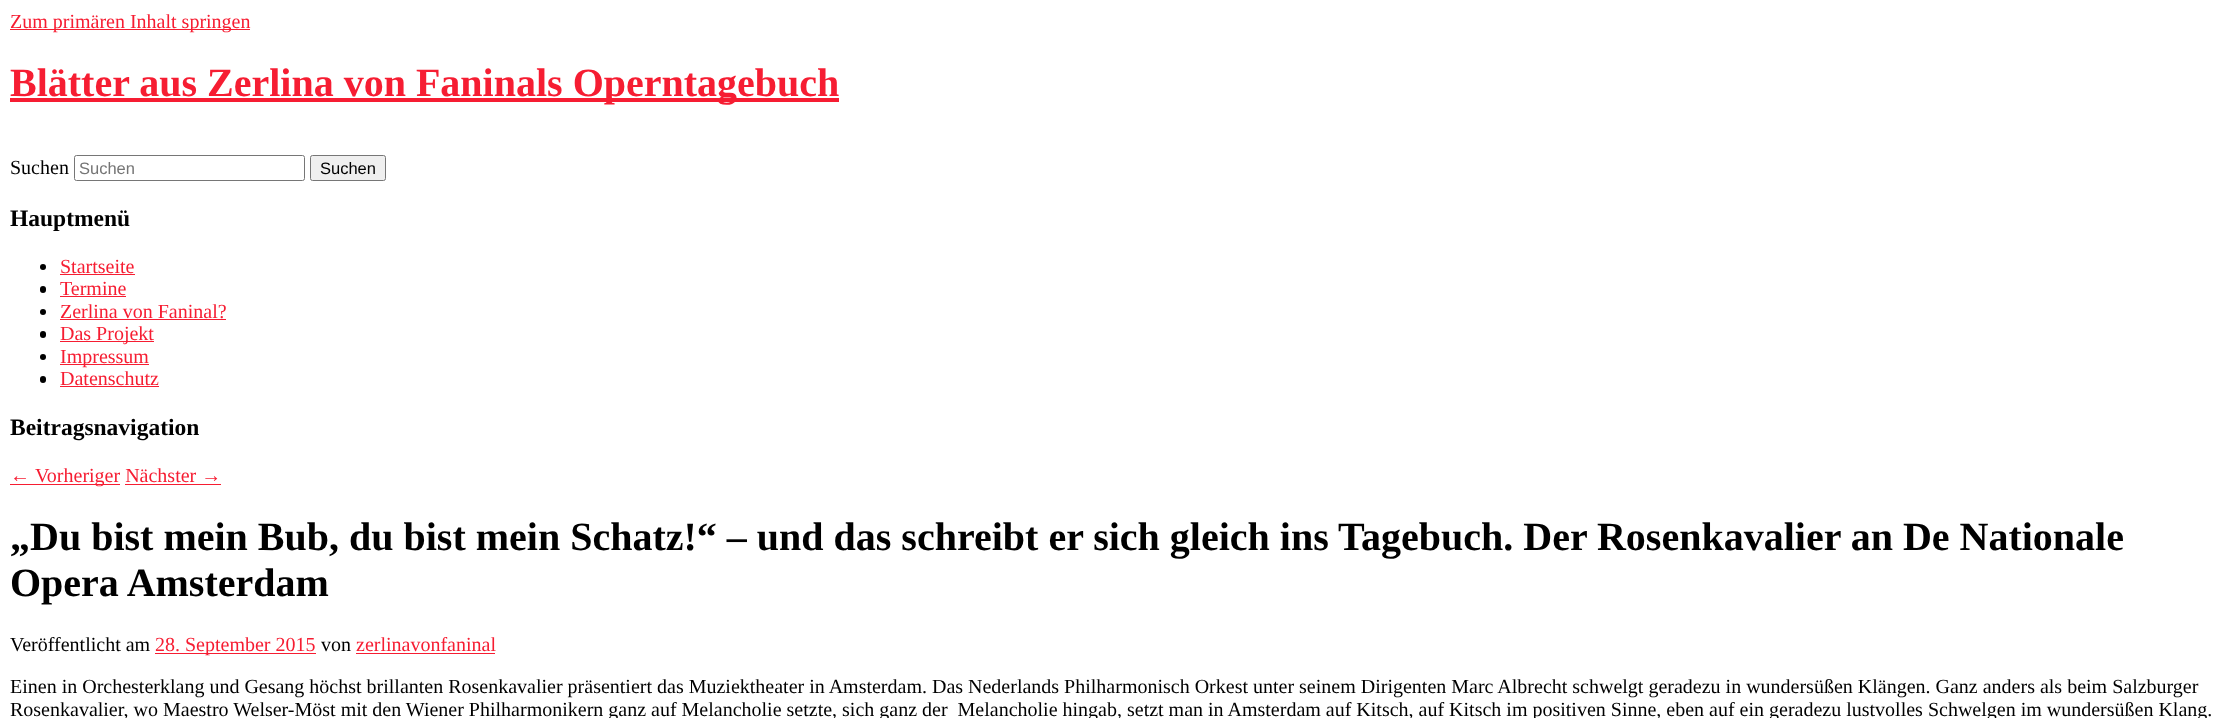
(async () => {
const canvas = document.querySelector("canvas")
canvas.width = 2232
canvas.height = 718
const c = canvas.getContext("2d")
c.miterLimit = 4
c.fontKerning = "normal"
function T(s,x,y){c.fillText(s,x,y)}
function R(x,y,w,h){c.fillRect(x,y,w,h)}
function Q(x,y,w,h,r){c.beginPath();c.roundRect(x,y,w,h,r);c.fill()}
c.fillStyle="#fff"
R(0,0,2232,718)
c.fillStyle="#f61d32"
R(10,29,240,1)
c.font="20px Liberation Serif"
T("Zum primären Inhalt springen",10,28)
R(10,98,829,4)
c.font="bold 40px Liberation Serif"
T("Blätter aus Zerlina von Faninals Operntagebuch",10,96)
c.font="20px Liberation Serif"
c.fillStyle="#000"
T("Suchen",10,174)
c.beginPath()
c.roundRect(74.5,155.5,230,25,2)
c.strokeStyle="#767676"
c.stroke()
c.font="16.5px Liberation Sans"
c.fillStyle="#757575"
T("Suchen",79,174)
c.fillStyle="#efefef"
c.beginPath()
c.roundRect(310.5,155.5,75,25,2)
c.fill()
c.stroke()
c.fillStyle="#000"
T("Suchen",320,174)
c.font="bold 23.5px Liberation Serif"
T("Hauptmenü",10,226)
c.beginPath()
c.arc(43,267,3,0,7)
c.fill()
c.font="20px Liberation Serif"
c.fillStyle="#f61d32"
T("Startseite",60,273)
R(60,274,75,1)
c.fillStyle="#000"
Q(40,286,6,7,3)
c.fillStyle="#f61d32"
T("Termine",60,295)
R(60,296,66,1)
c.fillStyle="#000"
c.beginPath()
c.arc(43,312,3,0,7)
c.fill()
c.fillStyle="#f61d32"
T("Zerlina von Faninal?",60,318)
R(60,319,166,1)
c.fillStyle="#000"
Q(40,331,6,7,3)
c.fillStyle="#f61d32"
R(60,341,94,1)
T("Das Projekt",60,340)
c.fillStyle="#000"
c.beginPath()
c.arc(43,357,3,0,7)
c.fill()
c.fillStyle="#f61d32"
R(60,364,89,1)
T("Impressum",60,363)
c.fillStyle="#000"
Q(40,376,6,7,3)
c.fillStyle="#f61d32"
T("Datenschutz",60,385)
R(60,386,99,1)
c.font="bold 23.5px Liberation Serif"
c.fillStyle="#000"
T("Beitragsnavigation",10,435)
c.font="20px Liberation Serif"
c.fillStyle="#f61d32"
T("←",10,482)
R(10,484,110,1)
T("Vorheriger Nächster →",35,482)
R(125,484,96,1)
c.font="bold 40px Liberation Serif"
c.fillStyle="#000"
T("„Du bist mein Bub, du bist mein Schatz!“ – und das schreibt er sich gleich ins Tagebuch. Der Rosenkavalier an De Nationale",10,550)
T("Opera Amsterdam",10,596)
c.font="20px Liberation Serif"
T("Veröffentlicht am",10,651)
c.fillStyle="#f61d32"
R(155,653,161,1)
T("28. September 2015",155,651)
c.fillStyle="#000"
T("von",321,651)
c.fillStyle="#f61d32"
R(356,653,139,1)
T("zerlinavonfaninal",356,651)
c.fillStyle="#000"
T("Einen in Orchesterklang und Gesang höchst brillanten Rosenkavalier präsentiert das Muziektheater in Amsterdam. Das Nederlands Philharmonisch Orkest unter seinem Dirigenten Marc Albrecht schwelgt geradezu in wundersüßen Klängen. Ganz anders als beim Salzburger",10,693)
T("Rosenkavalier, wo Maestro Welser-Möst mit den Wiener Philharmonikern ganz auf Melancholie setzte, sich ganz der  Melancholie hingab, setzt man in Amsterdam auf Kitsch, auf Kitsch im positiven Sinne, eben auf ein geradezu lustvolles Schwelgen im wundersüßen Klang.",10,716)
})()
